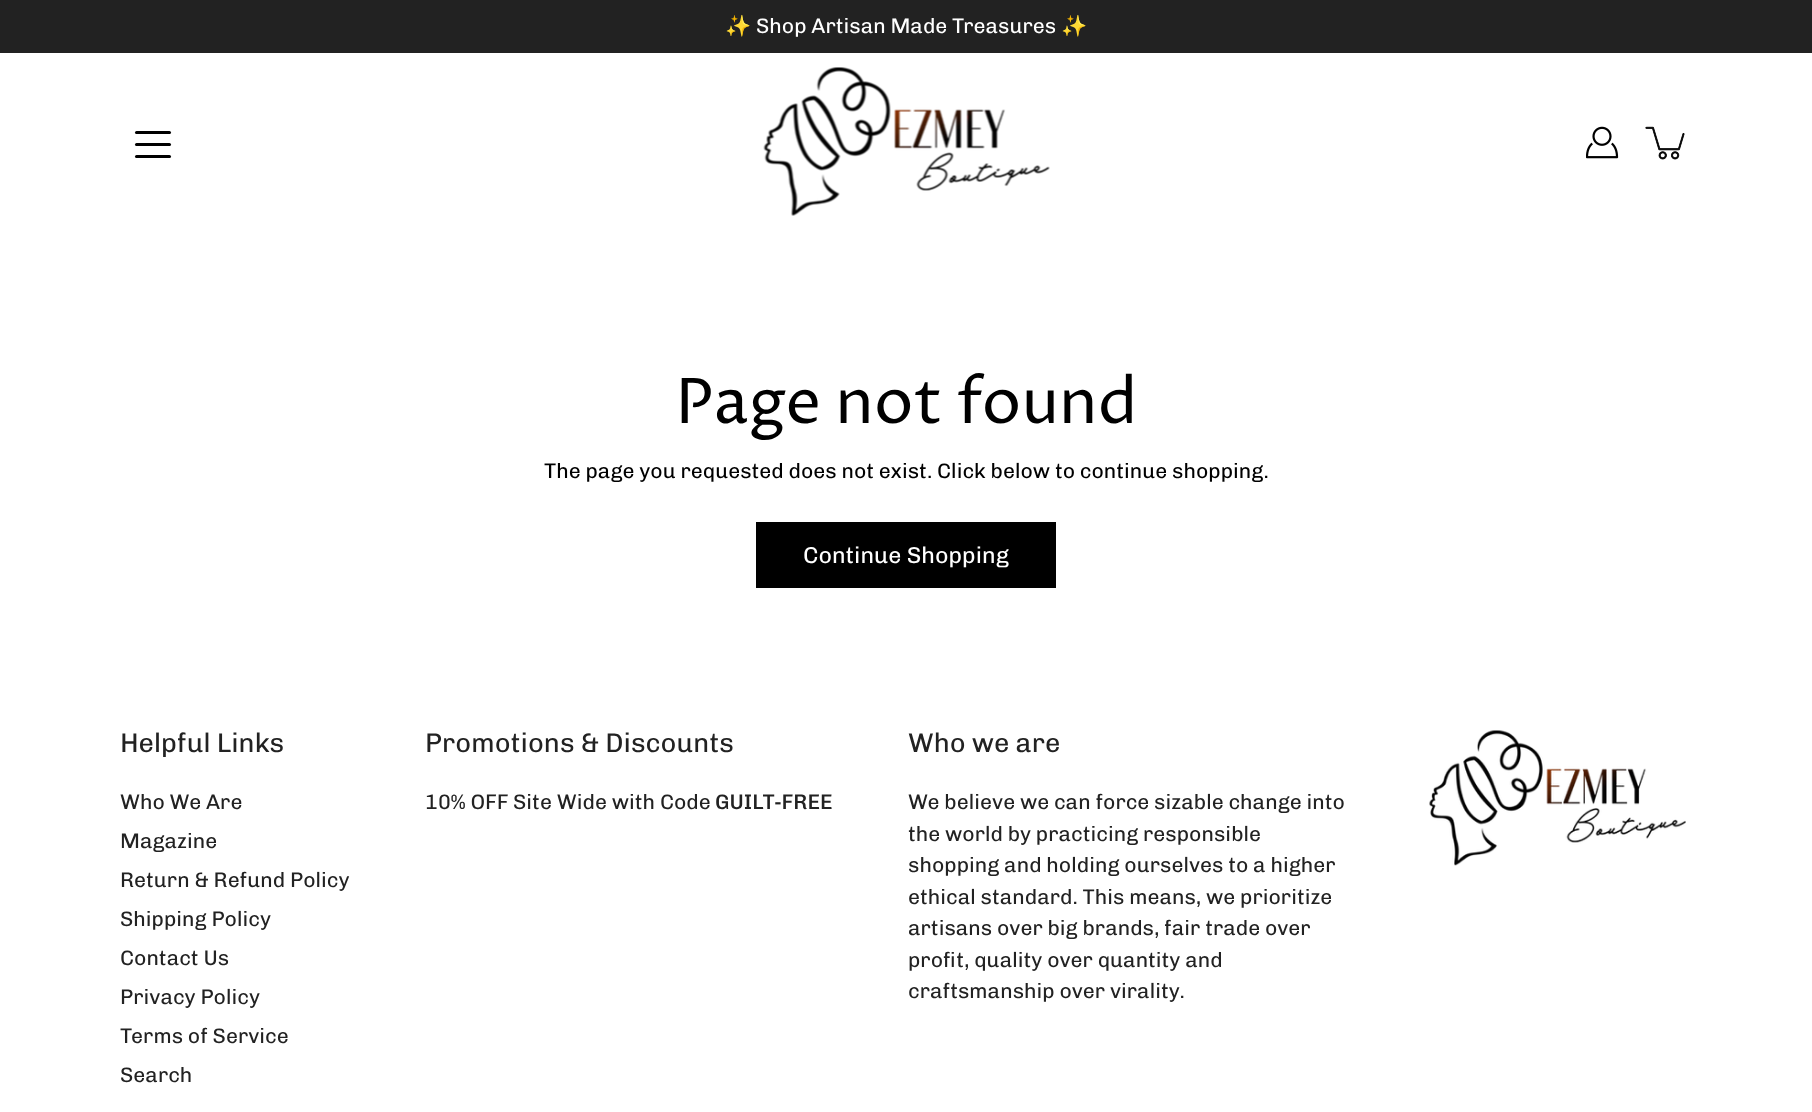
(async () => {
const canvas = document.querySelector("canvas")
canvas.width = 1812
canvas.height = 1112
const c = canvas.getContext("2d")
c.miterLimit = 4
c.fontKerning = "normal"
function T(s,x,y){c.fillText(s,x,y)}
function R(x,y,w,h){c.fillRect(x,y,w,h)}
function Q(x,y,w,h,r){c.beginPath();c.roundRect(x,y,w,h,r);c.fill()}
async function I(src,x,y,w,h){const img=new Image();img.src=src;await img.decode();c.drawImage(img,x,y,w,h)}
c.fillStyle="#fff"
R(0,0,1812,1112)
c.fillStyle="#222"
R(0,0,1812,53)
c.font="21px Noto Color Emoji"
c.fillStyle="#fff"
T("✨",725,33)
c.font="21px Chivo"
T("Shop Artisan Made Treasures",756,33)
c.font="21px Noto Color Emoji"
T("✨",1061,33)
await I("1.png",763,67,287,149)
c.fillStyle="#000"
Q(135,143,36,3,1.5)
Q(135,131,36,3,1.5)
Q(135,155,36,3,1.5)
await I("2.png",1586,126,33,33)
await I("3.png",1645,126,40,34)
c.font="63px Proza Libre"
T("Page not found",675,423)
c.font="21px Chivo"
T("The page you requested does not exist. Click below to continue shopping.",544,478)
R(756,522,300,66)
c.font="23px Chivo"
c.fillStyle="#fff"
T("Continue Shopping",803,563)
c.font="27px Chivo"
c.fillStyle="#222"
T("Helpful Links",120,752)
c.font="21px Chivo"
T("Who We Are",120,809)
T("Magazine",120,848)
T("Return & Refund Policy",120,887)
T("Shipping Policy",120,926)
T("Contact Us",120,965)
T("Privacy Policy",120,1004)
T("Terms of Service",120,1043)
T("Search",120,1082)
c.font="27px Chivo"
T("Promotions & Discounts",425,752)
c.font="21px Chivo"
T("10% OFF Site Wide with Code",425,809)
c.font="500 21px Chivo"
T("GUILT-FREE",715,809)
c.font="27px Chivo"
T("Who we are",908,752)
c.font="21px Chivo"
T("We believe we can force sizable change into",908,809)
T("the world by practicing responsible",908,841)
T("shopping and holding ourselves to a higher",908,872)
T("ethical standard. This means, we prioritize",908,904)
T("artisans over big brands, fair trade over",908,935)
T("profit, quality over quantity and",908,967)
T("craftsmanship over virality.",908,998)
await I("4.png",1429,730,257,136)
})()
